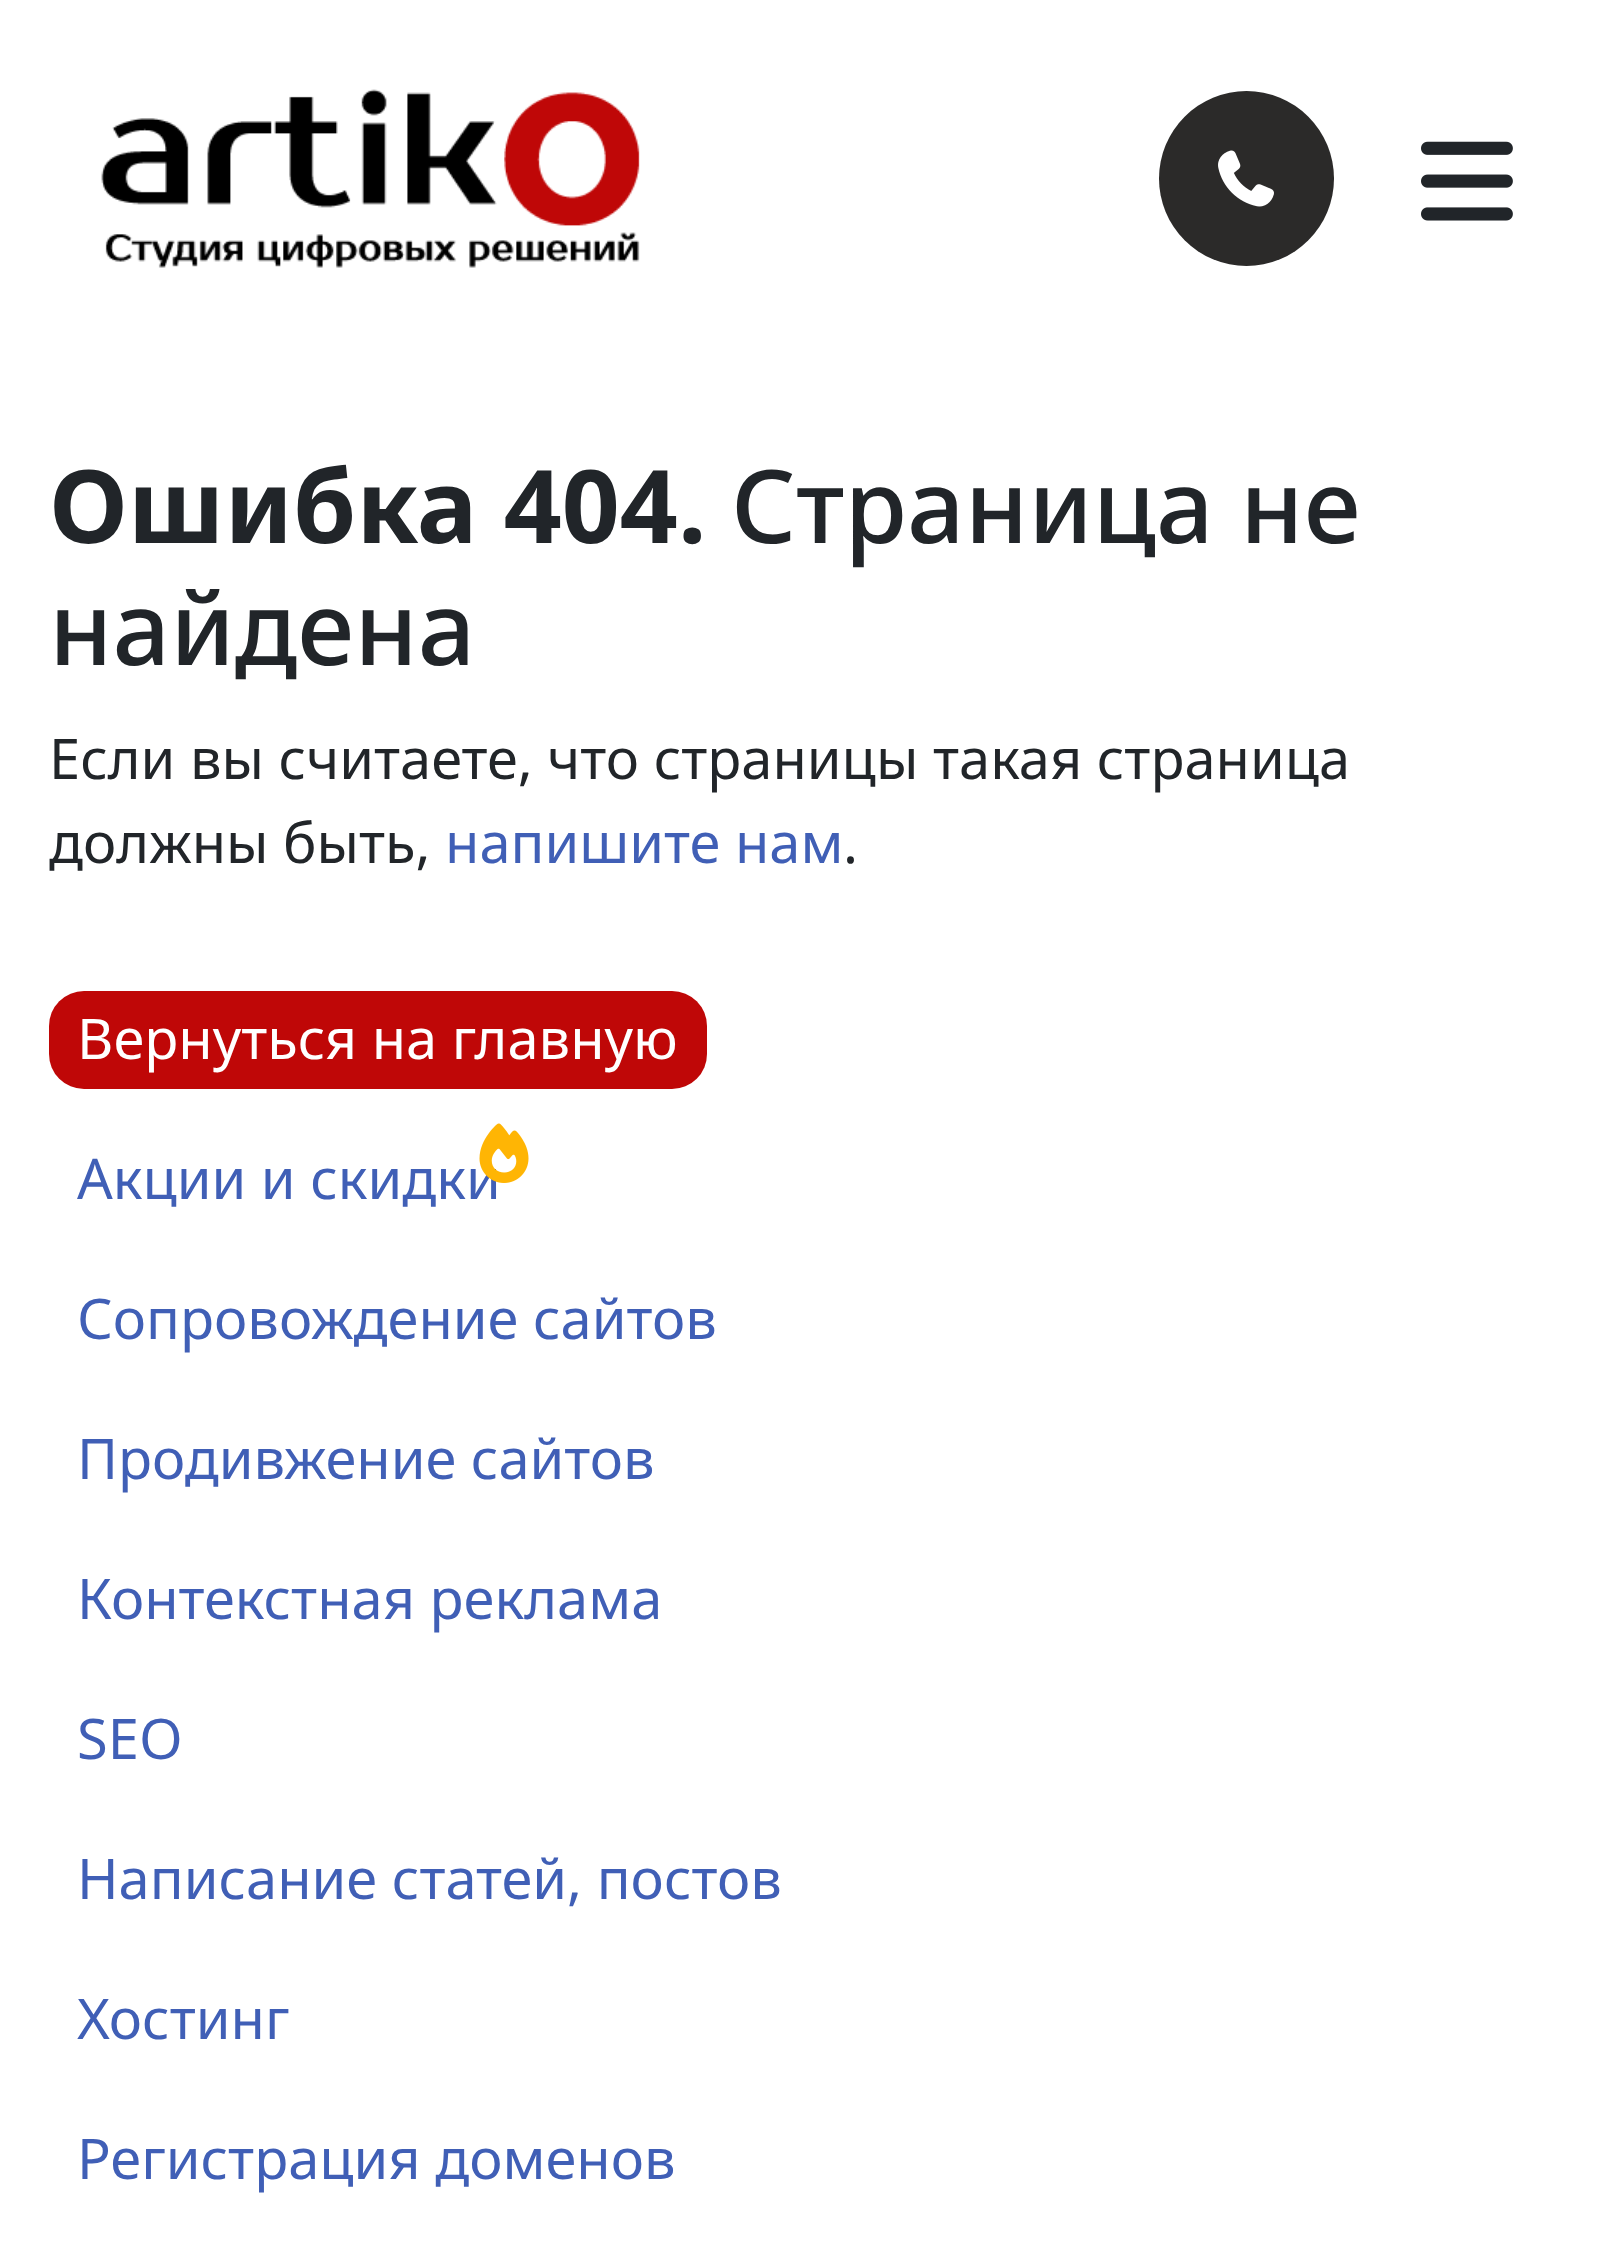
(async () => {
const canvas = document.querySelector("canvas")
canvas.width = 1624
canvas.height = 2241
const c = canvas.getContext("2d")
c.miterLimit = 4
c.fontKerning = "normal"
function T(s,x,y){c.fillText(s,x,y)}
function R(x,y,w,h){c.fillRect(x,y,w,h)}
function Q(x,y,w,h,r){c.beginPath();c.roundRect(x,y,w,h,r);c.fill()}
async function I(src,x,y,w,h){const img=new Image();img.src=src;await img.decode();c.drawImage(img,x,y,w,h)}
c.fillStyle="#fff"
R(0,0,1624,2241)
await I("1.png",101,89,539,179)
c.fillStyle="#2b2a29"
c.beginPath()
c.arc(1246.5,178.5,87.5,0,7)
c.fill()
await I("2.png",1218,150,56,57)
await I("3.png",1421,141,92,80)
c.font="bold 101.5px Noto Sans"
c.fillStyle="#212529"
T("Ошибка 404.",49,543)
c.font="500 101.5px Noto Sans"
T("Страница не",731,543)
T("найдена",49,665)
c.font="56px Noto Sans"
T("Если вы считаете, что страницы такая страница",49,779)
T("должны быть,",49,863)
c.fillStyle="#405fb6"
T("напишите нам",445,863)
c.fillStyle="#212529"
T(".",843,863)
c.fillStyle="#bf0707"
Q(49,991,658,98,35)
c.fillStyle="#fff"
T("Вернуться на главную",77,1059)
c.fillStyle="#405fb6"
T("Акции и скидки",77,1199)
await I("4.png",479,1123,50,60)
T("Сопровождение сайтов",77,1339)
T("Продивжение сайтов",77,1479)
T("Контекстная реклама",77,1619)
T("SEO",77,1759)
T("Написание статей, постов",77,1899)
T("Хостинг",77,2039)
T("Регистрация доменов",77,2179)
})()
